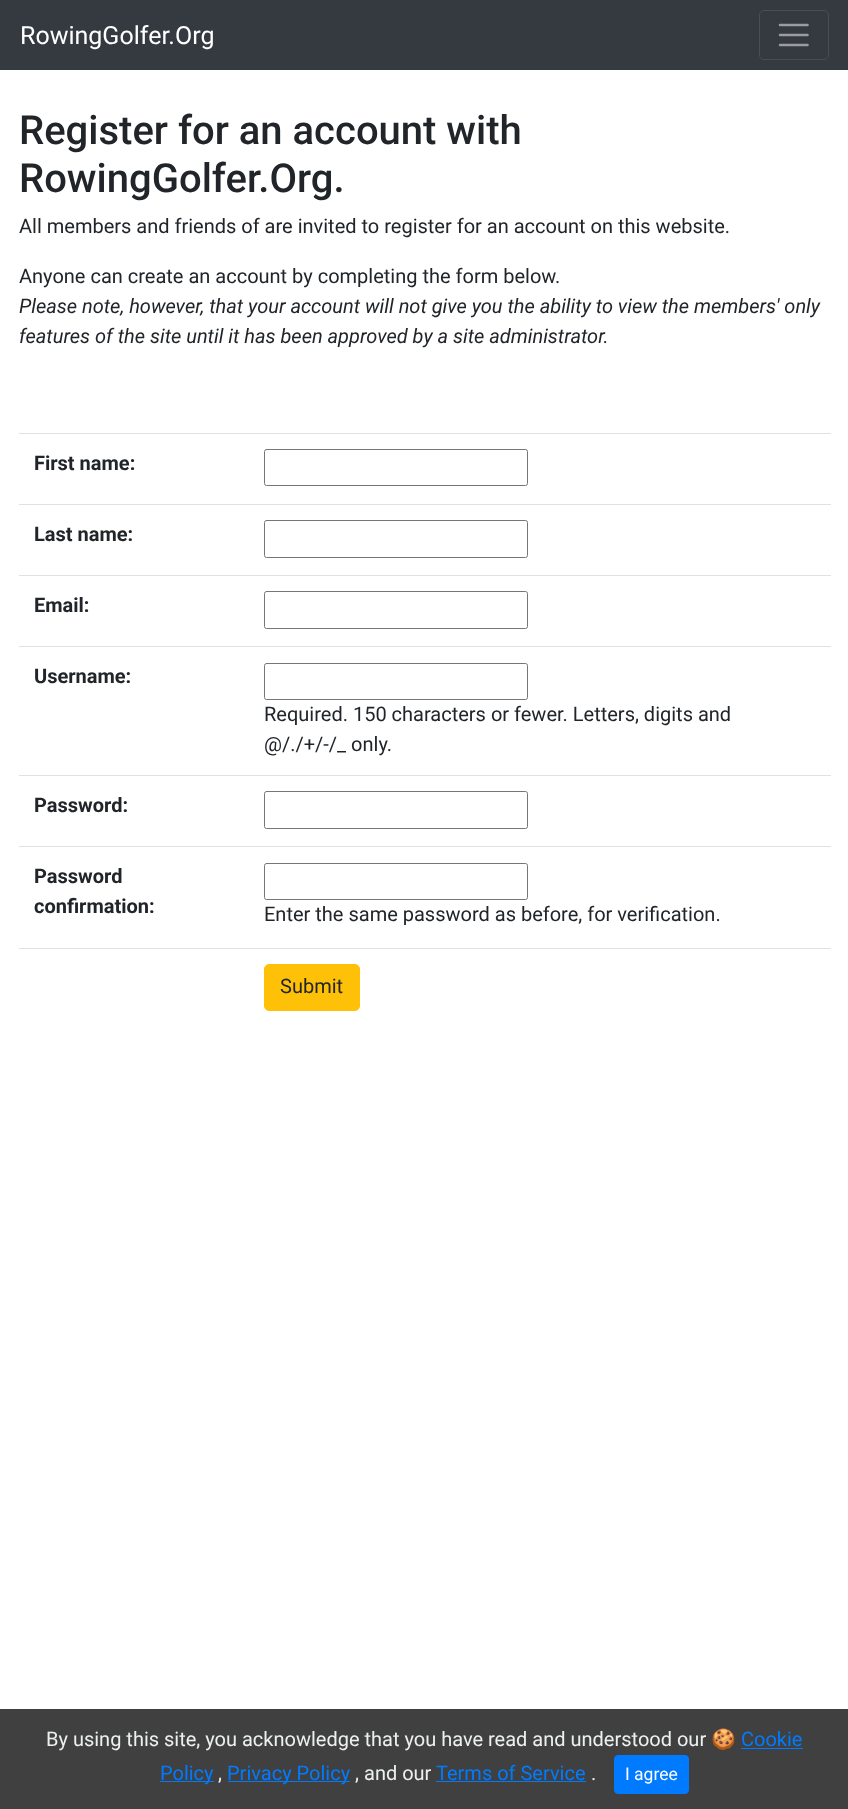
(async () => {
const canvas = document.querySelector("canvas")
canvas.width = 848
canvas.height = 1809
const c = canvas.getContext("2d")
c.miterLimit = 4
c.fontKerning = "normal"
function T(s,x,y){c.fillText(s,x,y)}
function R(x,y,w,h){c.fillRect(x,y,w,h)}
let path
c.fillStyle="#fff"
R(0,0,848,1809)
c.fillStyle="#343a40"
R(0,0,848,70)
c.font="25px Roboto"
c.fillStyle="#fff"
T("RowingGolfer.Org",20,44)
c.beginPath()
c.roundRect(759.5,10.5,69,49,4.5)
c.strokeStyle="#484e53"
c.stroke()
path = new Path2D("M780 25h27.5m-27.5 10h27.5m-27.5 10h27.5")
c.strokeStyle="#9a9da0"
c.lineWidth=2.5
c.lineCap="round"
c.stroke(path)
c.font="500 40px Roboto"
c.fillStyle="#212529"
T("Register for an account with",19,144)
T("RowingGolfer.Org.",19,192)
c.font="20px Roboto"
T("All members and friends of are invited to register for an account on this website.",19,233)
T("Anyone can create an account by completing the form below.",19,283)
c.font="italic 20px Roboto"
T("Please note, however, that your account will not give you the ability to view the members' only",19,313)
T("features of the site until it has been approved by a site administrator.",19,343)
c.fillStyle="#dee2e6"
R(19,433,812,1)
c.beginPath()
c.roundRect(264.5,449.5,263,36,2)
c.strokeStyle="#767676"
c.lineWidth=1
c.stroke()
c.font="bold 20px Roboto"
c.fillStyle="#212529"
T("First name:",34,470)
c.fillStyle="#dee2e6"
R(19,504,812,1)
c.beginPath()
c.roundRect(264.5,520.5,263,37,2)
c.stroke()
c.fillStyle="#212529"
T("Last name:",34,541)
c.fillStyle="#dee2e6"
R(19,575,812,1)
c.beginPath()
c.roundRect(264.5,591.5,263,37,2)
c.stroke()
c.fillStyle="#212529"
T("Email:",34,612)
T("Username:",34,683)
c.fillStyle="#dee2e6"
R(19,646,812,1)
c.beginPath()
c.roundRect(264.5,663.5,263,36,2)
c.stroke()
c.font="20px Roboto"
c.fillStyle="#212529"
T("Required. 150 characters or fewer. Letters, digits and",264,721)
T("@/./+/-/_ only.",264,751)
c.fillStyle="#dee2e6"
R(19,775,812,1)
c.beginPath()
c.roundRect(264.5,791.5,263,37,2)
c.stroke()
c.font="bold 20px Roboto"
c.fillStyle="#212529"
T("Password:",34,812)
T("Password",34,883)
T("confirmation:",34,913)
c.fillStyle="#dee2e6"
R(19,846,812,1)
c.beginPath()
c.roundRect(264.5,863.5,263,36,2)
c.stroke()
c.font="20px Roboto"
c.fillStyle="#212529"
T("Enter the same password as before, for verification.",264,921)
c.fillStyle="#dee2e6"
R(19,948,812,1)
c.fillStyle="#ffc107"
c.beginPath()
c.roundRect(264.5,964.5,95,46,4.5)
c.fill()
c.strokeStyle="#ffc107"
c.stroke()
c.fillStyle="#212529"
T("Submit",280,993)
c.fillStyle="#404040"
R(0,1709,848,100)
c.fillStyle="#ecf0f1"
T("By using this site, you acknowledge that you have read and understood our",46,1746)
c.font="20px Noto Color Emoji"
T("🍪",711,1746)
c.font="20px Roboto"
c.fillStyle="#007bff"
T("Cookie",741,1746)
R(741,1748,62,1)
R(160,1781,54,1)
T("Policy",160,1780)
c.fillStyle="#ecf0f1"
T(",",218,1780)
c.fillStyle="#007bff"
R(228,1781,122,1)
T("Privacy Policy",227,1780)
c.fillStyle="#ecf0f1"
T(",",355,1780)
T("and our",364,1780)
c.fillStyle="#007bff"
T("Terms of Service",436,1780)
R(436,1781,150,1)
c.fillStyle="#ecf0f1"
T(".",591,1780)
c.fillStyle="#007bff"
c.beginPath()
c.roundRect(614.5,1755.5,74,38,3.5)
c.fill()
c.strokeStyle="#007bff"
c.stroke()
c.font="17.5px Roboto"
c.fillStyle="#fff"
T("I agree",625,1780)
})()
